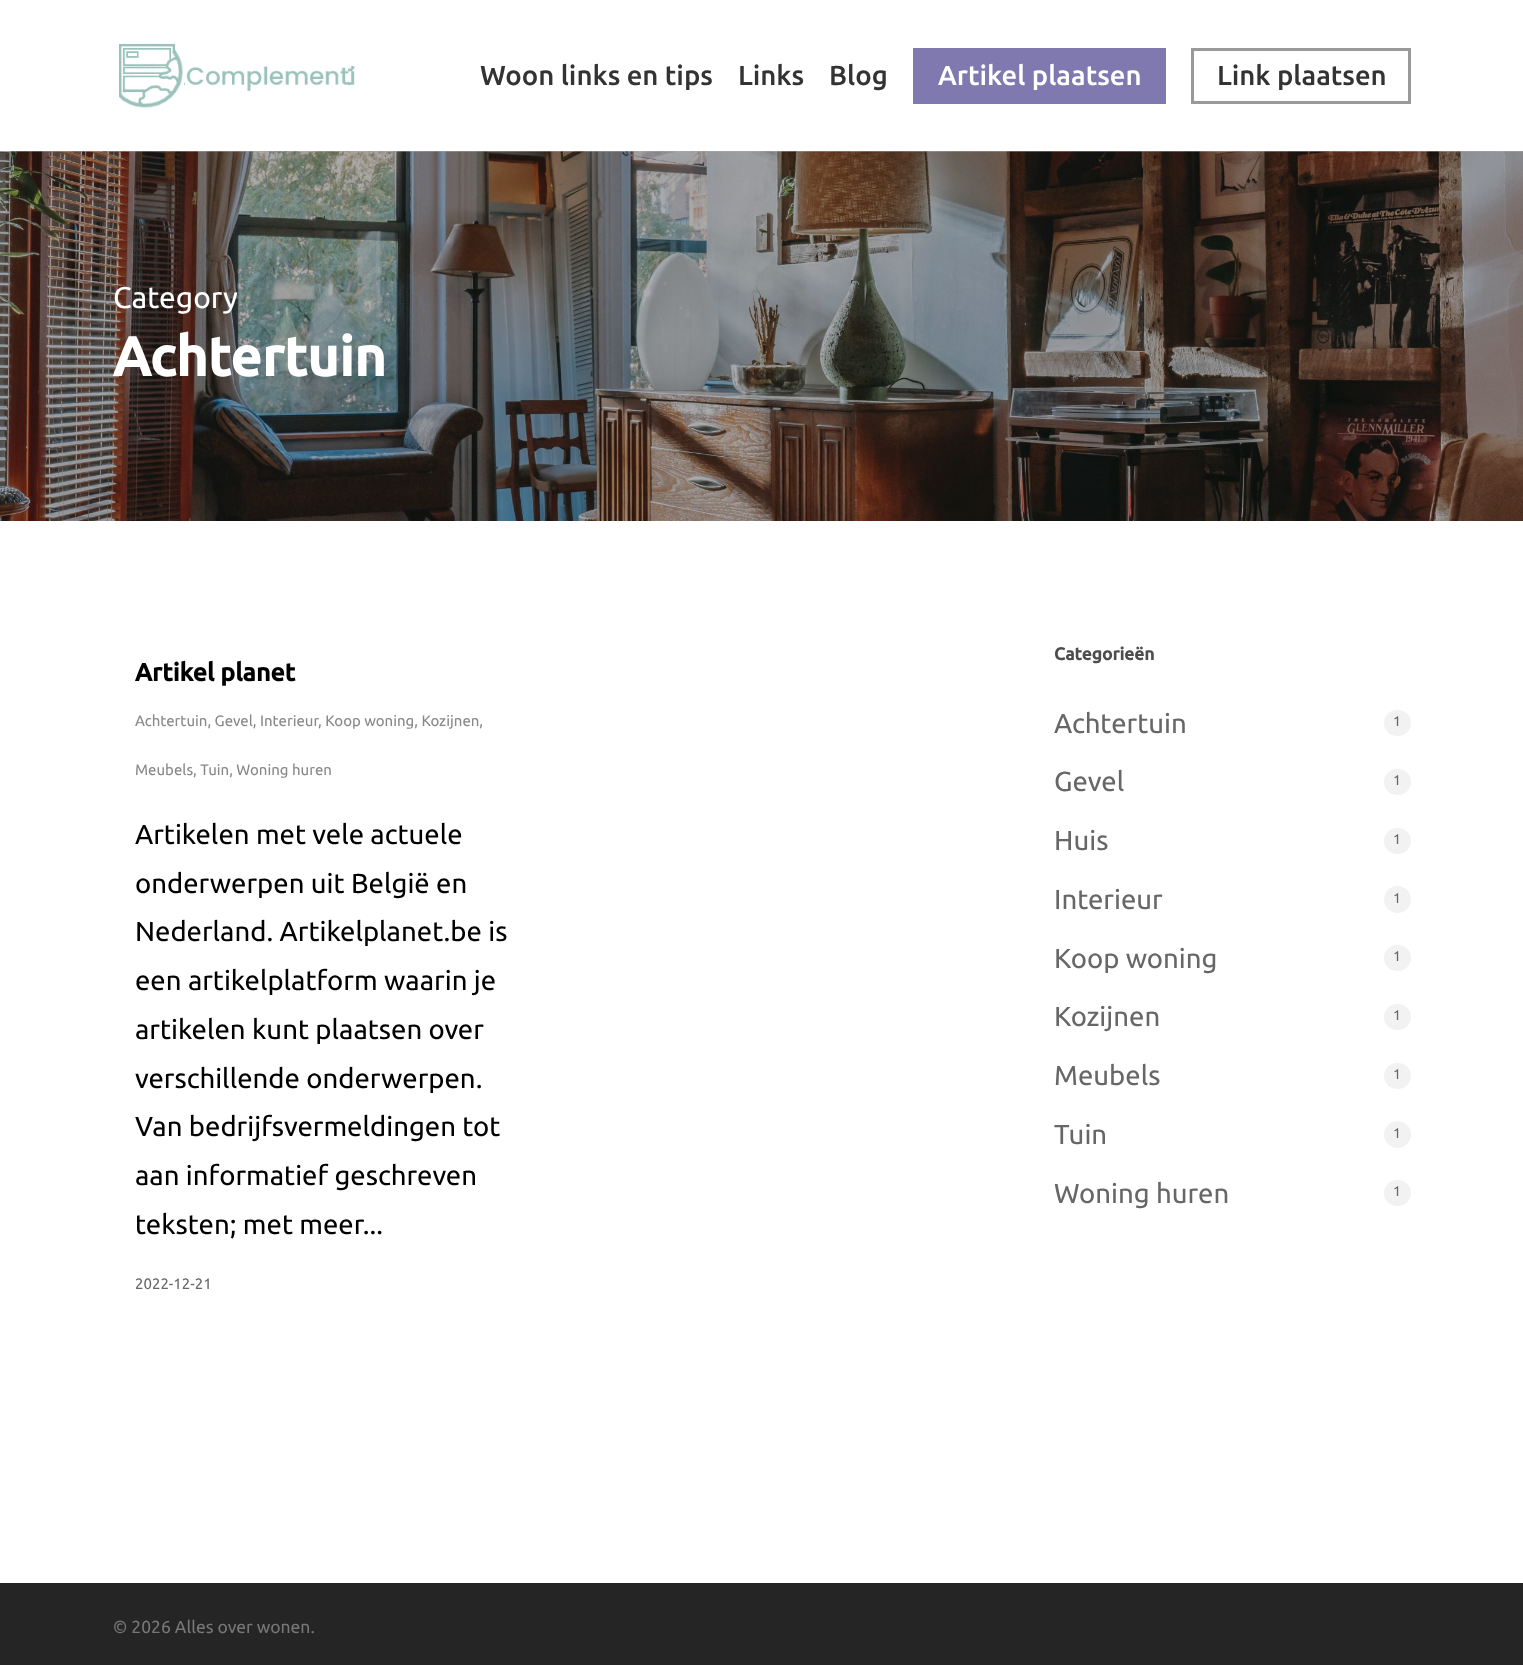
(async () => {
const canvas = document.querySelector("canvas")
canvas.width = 1523
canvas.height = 1665
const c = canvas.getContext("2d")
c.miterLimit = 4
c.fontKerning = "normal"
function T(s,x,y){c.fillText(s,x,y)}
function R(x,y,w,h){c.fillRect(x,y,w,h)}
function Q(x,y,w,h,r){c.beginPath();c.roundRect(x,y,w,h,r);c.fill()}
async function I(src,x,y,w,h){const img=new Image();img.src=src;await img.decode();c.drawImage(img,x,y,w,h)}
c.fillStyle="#fff"
R(0,0,1523,1665)
c.fillStyle="#afafaf"
R(0,151,1523,1)
await I("1.png",118,43,237,65)
c.font="500 27.5px Ubuntu"
c.fillStyle="#333"
T("Woon links en tips",480,85)
T("Links",738,85)
T("Blog",829,85)
c.fillStyle="#7f79b0"
R(913,48,253,56)
c.fillStyle="#fff"
T("Artikel plaatsen",938,85)
c.strokeStyle="#999"
c.lineWidth=3
c.strokeRect(1192.5,49.5,217,53)
c.fillStyle="#333"
T("Link plaatsen",1217,85)
await I("2.png",0,151,1523,370)
c.font="30px Ubuntu"
c.fillStyle="#fff"
T("Category",113,308)
c.font="bold 55px Ubuntu"
T("Achtertuin",113,376)
c.font="bold 25px Ubuntu"
c.fillStyle="#000"
T("Artikel planet",135,681)
c.font="15px Ubuntu"
c.fillStyle="#888"
T("Achtertuin, Gevel, Interieur",135,726)
T(", Koop woning, Kozijnen,",318,726)
T("Meubels, Tuin, Woning huren",135,775)
c.font="27.5px Ubuntu"
c.fillStyle="#000"
T("Artikelen met vele actuele",135,844)
T("onderwerpen uit België en",135,893)
T("Nederland. Artikelplanet.be is",135,941)
T("een artikelplatform waarin je",135,990)
T("artikelen kunt plaatsen over",135,1039)
T("verschillende onderwerpen.",135,1088)
T("Van bedrijfsvermeldingen tot",135,1136)
T("aan informatief geschreven",135,1185)
T("teksten; met meer...",135,1234)
c.font="15px Ubuntu"
c.fillStyle="#676767"
T("2022-12-21",135,1289)
c.font="bold 17.5px Ubuntu"
c.fillStyle="#4d4d4d"
T("Categorieën",1054,660)
c.font="27.5px Ubuntu"
c.fillStyle="#676767"
T("Achtertuin",1054,733)
c.fillStyle="#f2f2f2"
Q(1384,710,27,26,13)
c.font="14px Ubuntu"
c.fillStyle="#676767"
T("1",1393,726)
c.font="27.5px Ubuntu"
T("Gevel",1054,791)
c.fillStyle="#f2f2f2"
Q(1384,769,27,26,13)
c.font="14px Ubuntu"
c.fillStyle="#676767"
T("1",1393,785)
c.font="27.5px Ubuntu"
T("Huis",1054,850)
c.fillStyle="#f2f2f2"
Q(1384,828,27,26,13)
c.font="14px Ubuntu"
c.fillStyle="#676767"
T("1",1393,844)
c.font="27.5px Ubuntu"
T("Interieur",1054,909)
c.fillStyle="#f2f2f2"
c.beginPath()
c.arc(1397.5,899.5,13.5,0,7)
c.fill()
c.font="14px Ubuntu"
c.fillStyle="#676767"
T("1",1393,903)
c.font="27.5px Ubuntu"
T("Koop woning",1054,968)
c.fillStyle="#f2f2f2"
Q(1384,945,27,26,13)
c.font="14px Ubuntu"
c.fillStyle="#676767"
T("1",1393,961)
c.font="27.5px Ubuntu"
T("Kozijnen",1054,1026)
c.fillStyle="#f2f2f2"
Q(1384,1004,27,26,13)
c.font="14px Ubuntu"
c.fillStyle="#676767"
T("1",1393,1020)
c.font="27.5px Ubuntu"
T("Meubels",1054,1085)
c.fillStyle="#f2f2f2"
Q(1384,1063,27,26,13)
c.font="14px Ubuntu"
c.fillStyle="#676767"
T("1",1393,1079)
c.font="27.5px Ubuntu"
T("Tuin",1054,1144)
c.fillStyle="#f2f2f2"
c.beginPath()
c.arc(1397.5,1134.5,13.5,0,7)
c.fill()
c.font="14px Ubuntu"
c.fillStyle="#676767"
T("1",1393,1138)
c.font="27.5px Ubuntu"
T("Woning huren",1054,1203)
c.fillStyle="#f2f2f2"
Q(1384,1180,27,26,13)
c.font="14px Ubuntu"
c.fillStyle="#676767"
T("1",1393,1196)
c.fillStyle="#252525"
R(0,1583,1523,82)
c.font="17.5px Ubuntu"
c.fillStyle="#777"
T("© 2026 Alles over wonen.",113,1633)
})()
